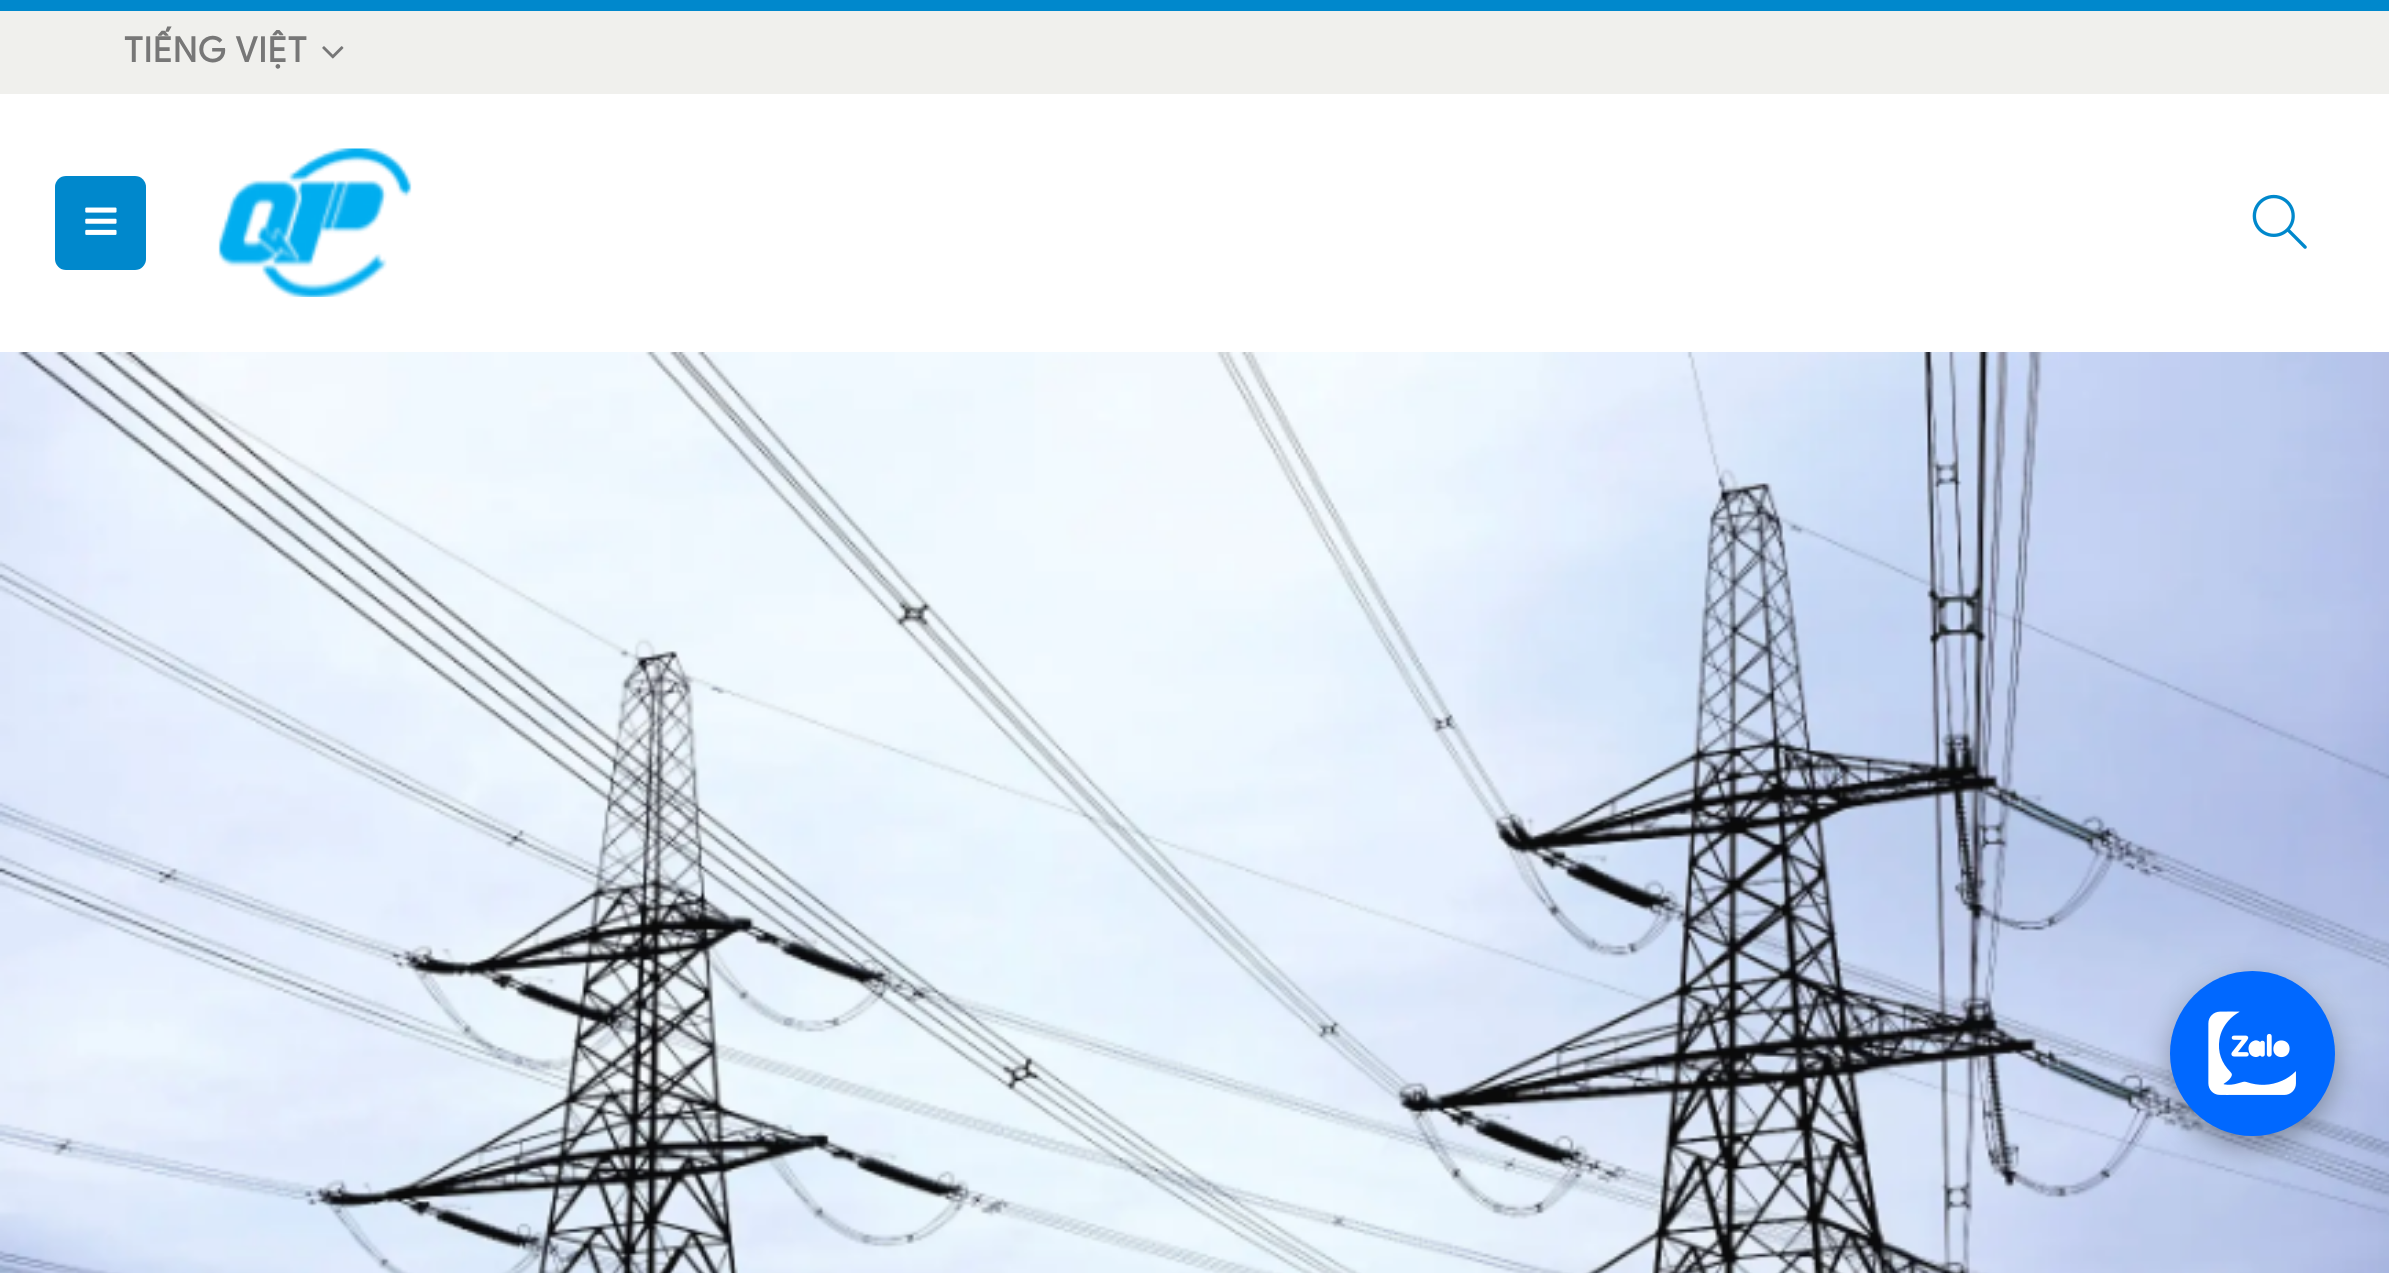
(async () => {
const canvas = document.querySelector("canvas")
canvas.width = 2389
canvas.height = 1273
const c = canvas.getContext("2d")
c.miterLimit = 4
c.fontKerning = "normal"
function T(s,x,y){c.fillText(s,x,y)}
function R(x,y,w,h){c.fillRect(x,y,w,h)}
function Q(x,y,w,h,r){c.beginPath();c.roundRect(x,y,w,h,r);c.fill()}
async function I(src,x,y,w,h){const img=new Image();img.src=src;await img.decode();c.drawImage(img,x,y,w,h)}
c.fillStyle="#fff"
R(0,0,2389,1273)
c.fillStyle="#08c"
R(0,0,2389,11)
c.fillStyle="#f0f0ed"
R(0,11,2389,83)
c.letterSpacing="0.9px"
c.font="bold 34.5px Google Sans"
c.fillStyle="#777"
T("TIẾNG VIỆT",124,62)
await I("1.png",322,46,22,13)
c.fillStyle="#08c"
Q(55,176,91,94,11)
await I("2.png",85,207,32,28)
await I("3.png",218,148,194,149)
await I("4.png",2252,194,55,55)
await I("5.png",0,352,2389,921)
c.fillStyle="#0000004d"
c.filter="blur(14px)"
c.beginPath()
c.roundRect(2170,982,165,165,82.5)
c.fill()
c.filter="none"
c.fillStyle="#0068ff"
c.beginPath()
c.arc(2252.5,1053.5,82.5,0,7)
c.fill()
await I("6.png",2208,1011,88,84)
})()
